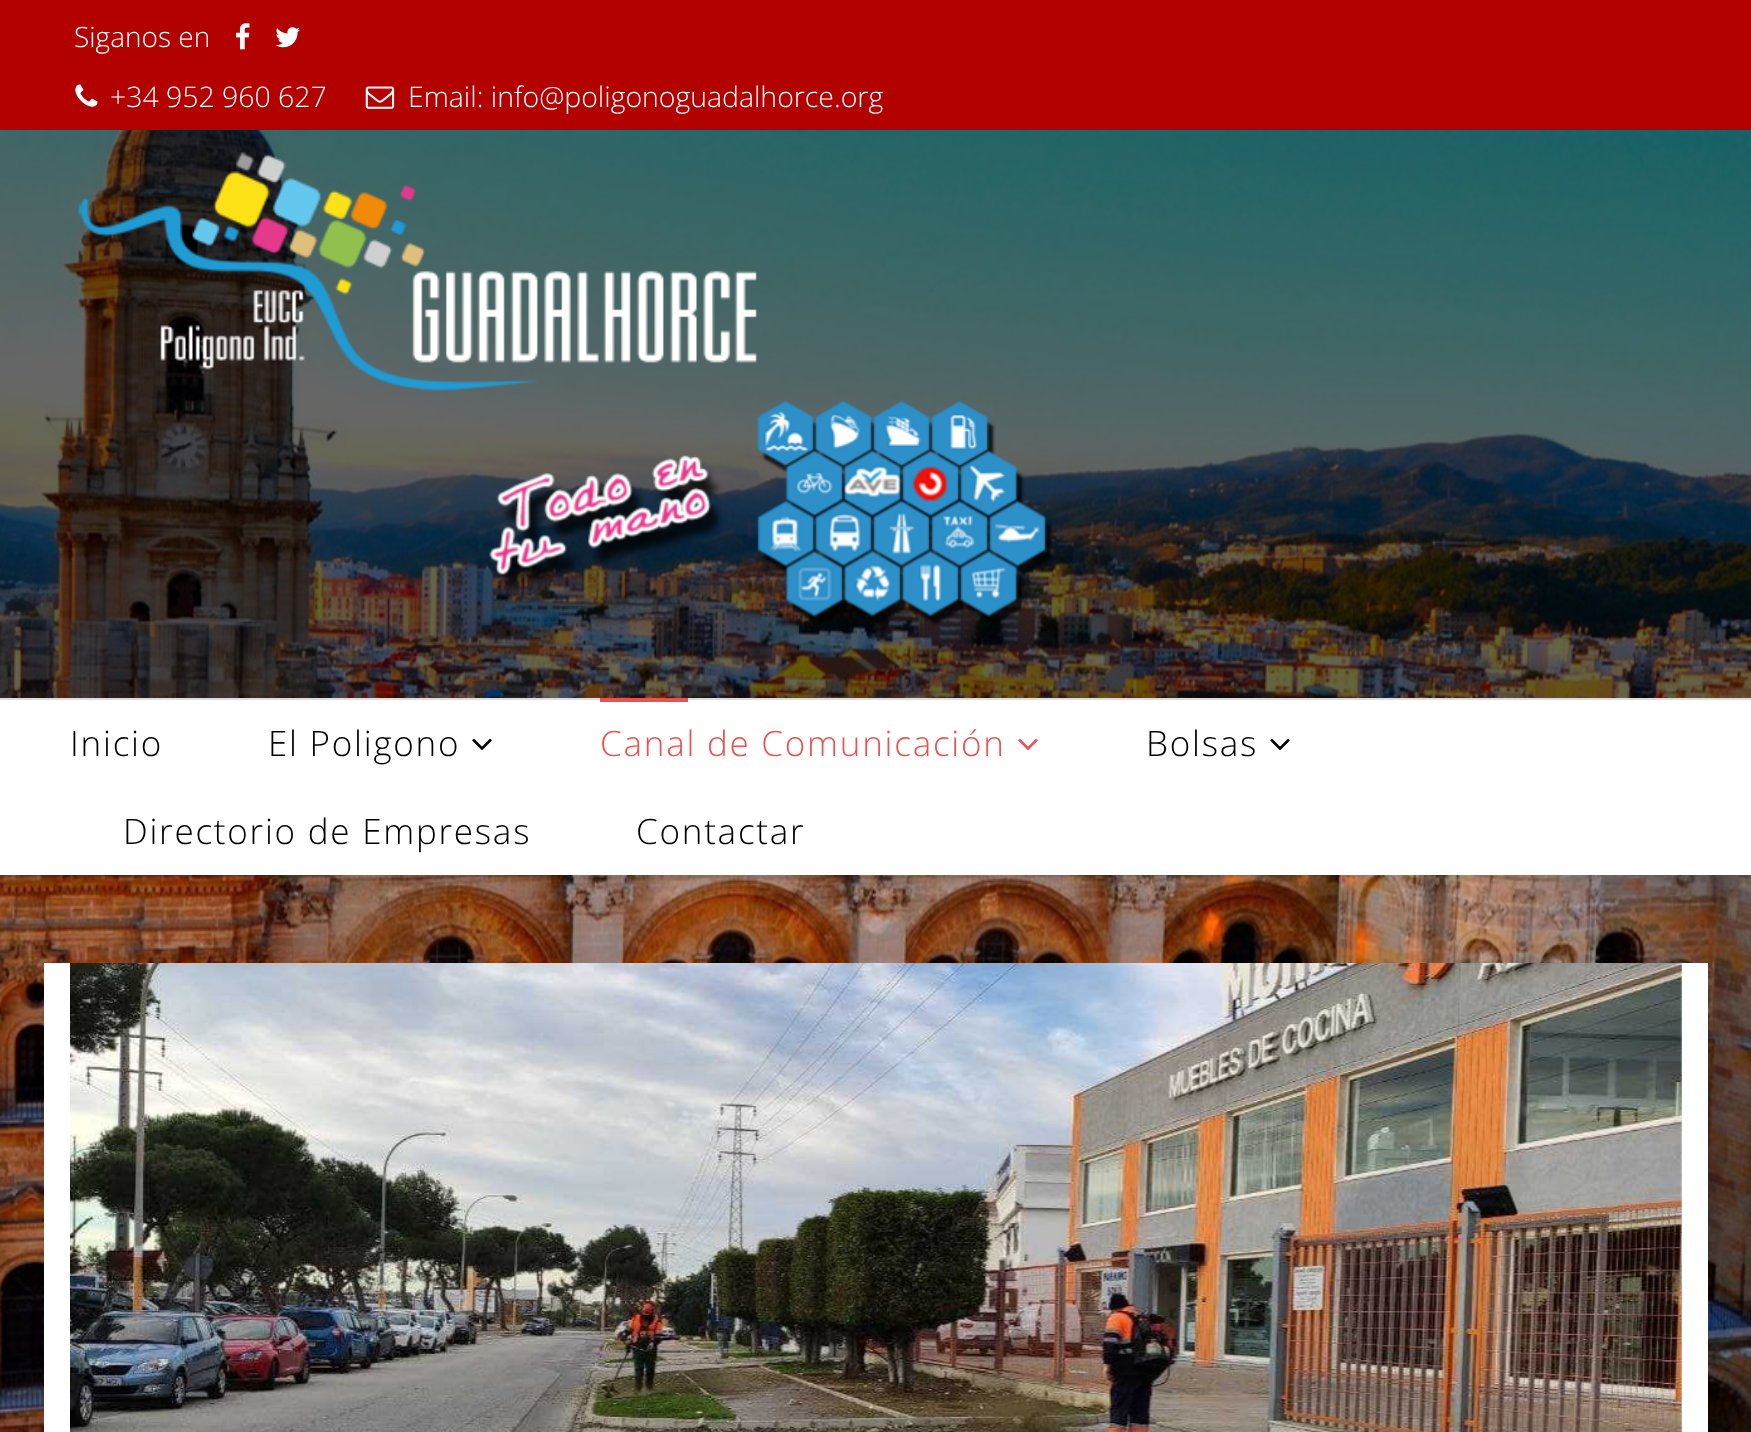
(async () => {
const canvas = document.querySelector("canvas")
canvas.width = 1751
canvas.height = 1432
const c = canvas.getContext("2d")
c.miterLimit = 4
c.fontKerning = "normal"
function T(s,x,y){c.fillText(s,x,y)}
function R(x,y,w,h){c.fillRect(x,y,w,h)}
async function I(src,x,y,w,h){const img=new Image();img.src=src;await img.decode();c.drawImage(img,x,y,w,h)}
c.fillStyle="#fff"
R(0,0,1751,1432)
c.fillStyle="#b30000"
R(0,0,1751,130)
c.font="300 28px Open Sans"
c.fillStyle="#fff"
T("Siganos en",74,47)
await I("1.png",236,23,14,27)
await I("2.png",275,27,25,21)
await I("3.png",75,84,23,23)
c.font="300 28.4px Open Sans"
T("+34 952 960 627",110,107)
await I("4.png",365,86,30,23)
T("Email: info@poligonoguadalhorce.org",408,107)
await I("10.png",0,130,1751,1302)
c.fillStyle="#00000099"
R(0,130,1751,568)
await I("5.png",78,151,679,240)
await I("6.png",489,400,564,225)
c.fillStyle="#0000000d"
c.filter="blur(2.5px)"
c.beginPath()
c.rect(0,704,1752,176)
c.fill()
c.filter="none"
c.fillStyle="#fff"
R(0,700,1751,175)
c.fillStyle="#ddd"
R(0,698,1751,2)
c.letterSpacing="1.75px"
c.font="300 35px Open Sans"
c.fillStyle="#000"
T("Inicio",70,756)
T("El Poligono",268,756)
await I("7.png",472,738,20,12)
c.fillStyle="#ee5050"
R(600,698,88,4)
T("Canal de Comunicación",600,756)
await I("8.png",1018,738,20,12)
c.fillStyle="#000"
T("Bolsas",1146,756)
await I("7.png",1270,738,20,12)
T("Directorio de Empresas",123,844)
T("Contactar",636,844)
c.fillStyle="#fff"
R(44,963,1664,469)
await I("9.png",70,963,1612,469)
})()
